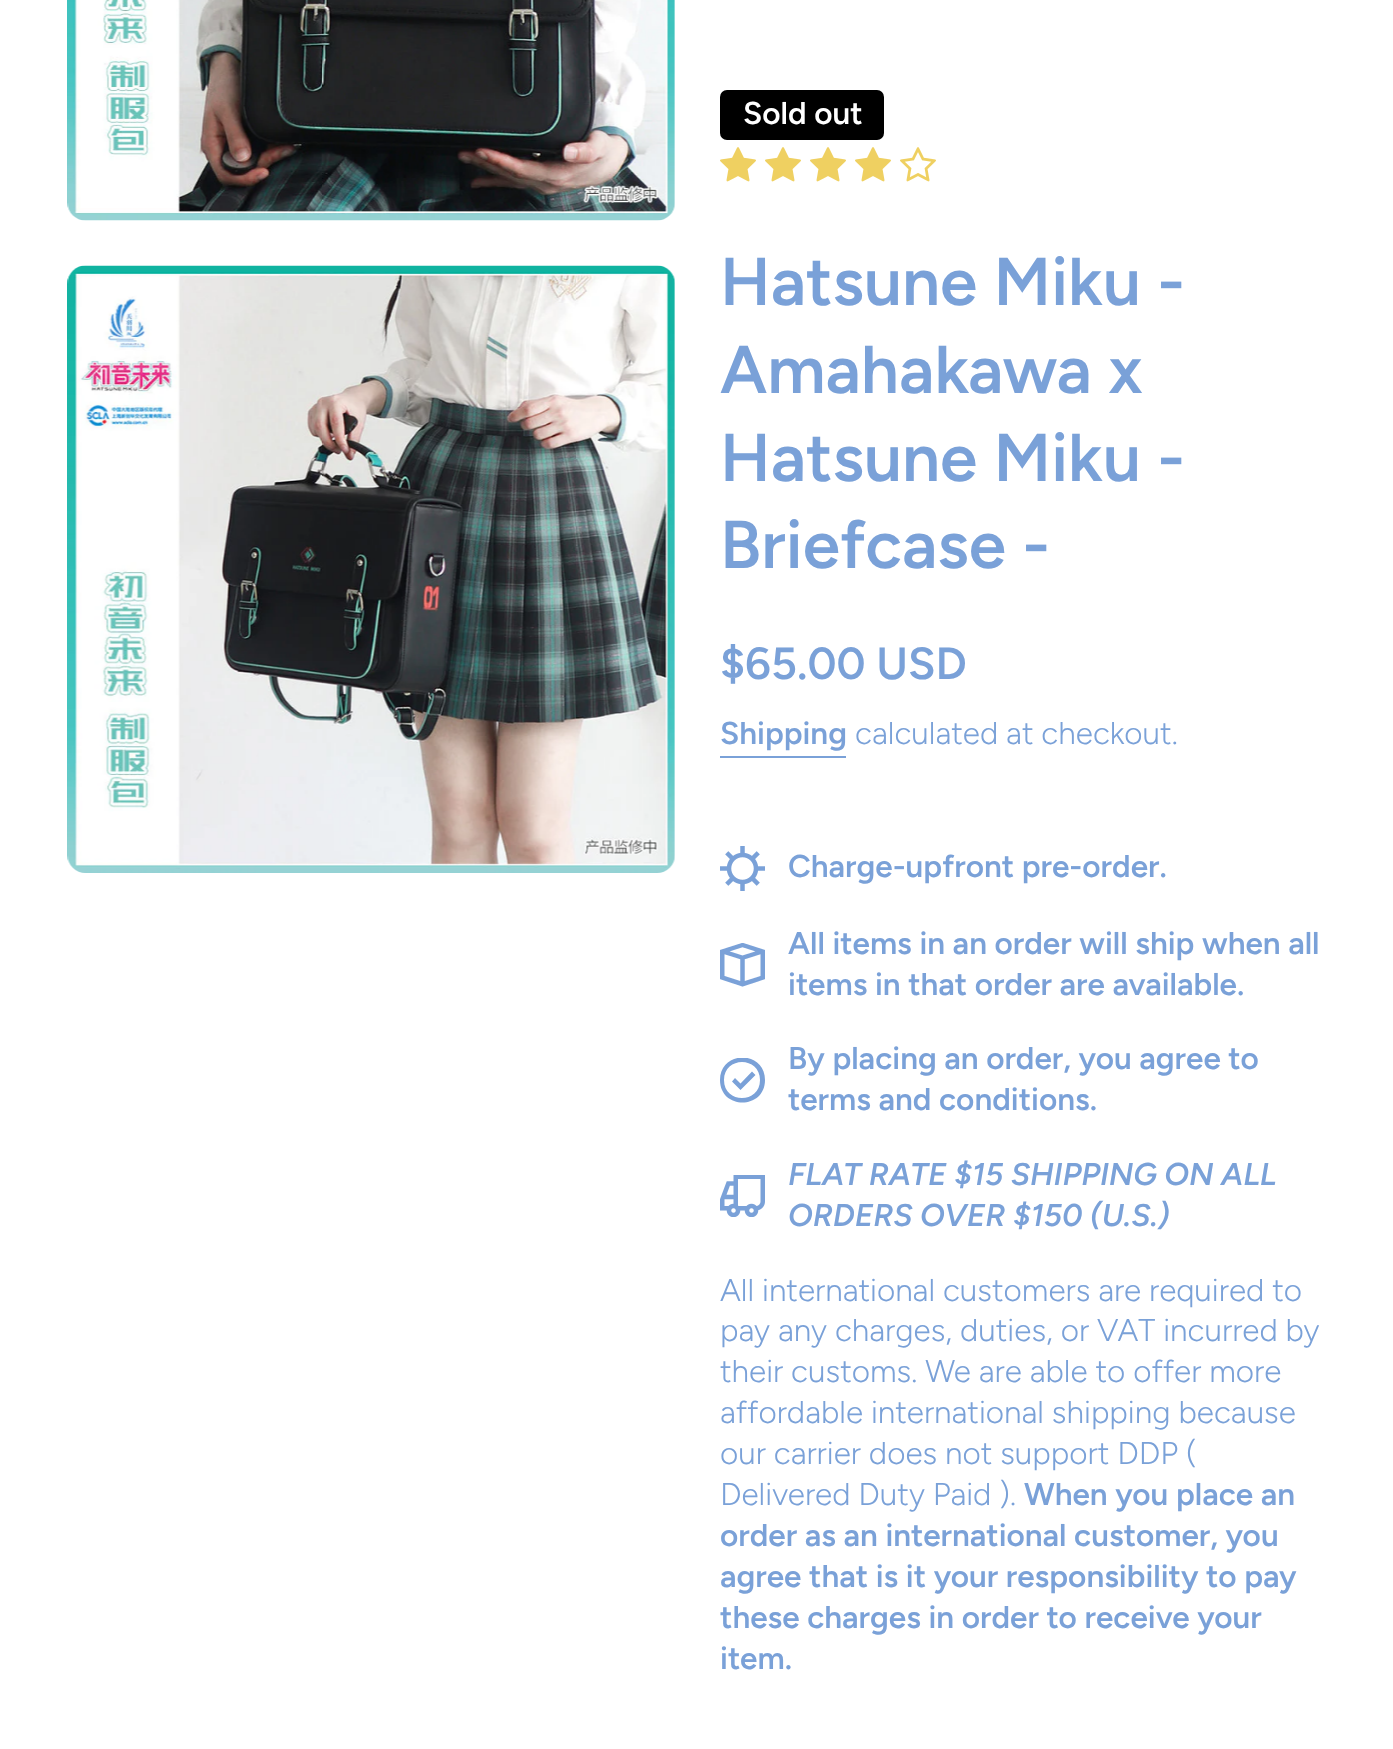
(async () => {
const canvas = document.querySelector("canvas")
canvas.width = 1393
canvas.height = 1749
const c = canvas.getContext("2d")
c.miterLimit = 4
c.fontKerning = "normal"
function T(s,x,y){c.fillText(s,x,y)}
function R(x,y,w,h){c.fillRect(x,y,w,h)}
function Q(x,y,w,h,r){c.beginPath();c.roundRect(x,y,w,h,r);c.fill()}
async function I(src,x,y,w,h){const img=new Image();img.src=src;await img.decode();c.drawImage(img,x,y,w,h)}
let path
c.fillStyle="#fff"
R(0,0,1393,1749)
await I("1.png",67,0,608,221)
await I("2.png",67,265,608,608)
c.fillStyle="#000"
Q(720,90,164,50,7)
c.font="600 31.5px Figtree"
c.fillStyle="#fff"
T("Sold out",743,124)
await I("3.png",720,147,36,35)
await I("3.png",765,147,36,35)
await I("3.png",810,147,36,35)
await I("3.png",855,147,36,35)
await I("4.png",900,147,36,35)
c.font="600 67.5px Figtree"
c.fillStyle="#7aa1d8"
T("Hatsune Miku -",720,305)
T("Amahakawa x",720,393)
T("Hatsune Miku -",720,481)
T("Briefcase -",720,568)
c.font="600 45px Figtree"
T("$65.00 USD",720,679)
c.font="600 31.5px Figtree"
T("Shipping",720,744)
R(720,756,126,2)
c.font="300 31.5px Figtree"
T("calculated at checkout.",855,744)
await I("5.png",720,846,45,45)
c.font="600 31.5px Figtree"
T("Charge-upfront pre-order.",788,877)
await I("6.png",720,943,45,44)
T("All items in an order will ship when all",788,954)
T("items in that order are available.",788,995)
path = new Path2D("M740.5 1090l15-15l-3.5-3.5l-11.5 12l-5.5-5.5l-3 3.5z")
c.fill(path)
c.save()
c.beginPath()
c.rect(720,1058,45,45)
c.clip()
path = new Path2D("M765 1080c0 30-45 30-45 0c0-30 45-30 45 0zm-5 0c0 24-36 24-36 0c0-24 36-24 36 0z")
c.fill(path,"evenodd")
c.restore()
T("By placing an order, you agree to",788,1069)
T("terms and conditions.",788,1110)
await I("7.png",720,1175,45,42)
c.font="italic 600 31.5px Figtree"
T("FLAT RATE $15 SHIPPING ON ALL",788,1185)
T("ORDERS OVER $150 (U.S.)",788,1226)
c.font="300 31.5px Figtree"
T("All international customers are required to",720,1301)
T("pay any charges, duties, or VAT incurred by",720,1341)
T("their customs. We are able to offer more",720,1382)
T("affordable international shipping because",720,1423)
T("our carrier does not support DDP (",720,1464)
T("Delivered Duty Paid ).",720,1505)
c.font="600 31.5px Figtree"
T("When you place an",1024,1505)
T("order as an international customer, you",720,1546)
T("agree that is it your responsibility to pay",720,1587)
T("these charges in order to receive your",720,1628)
T("item.",720,1669)
})()
